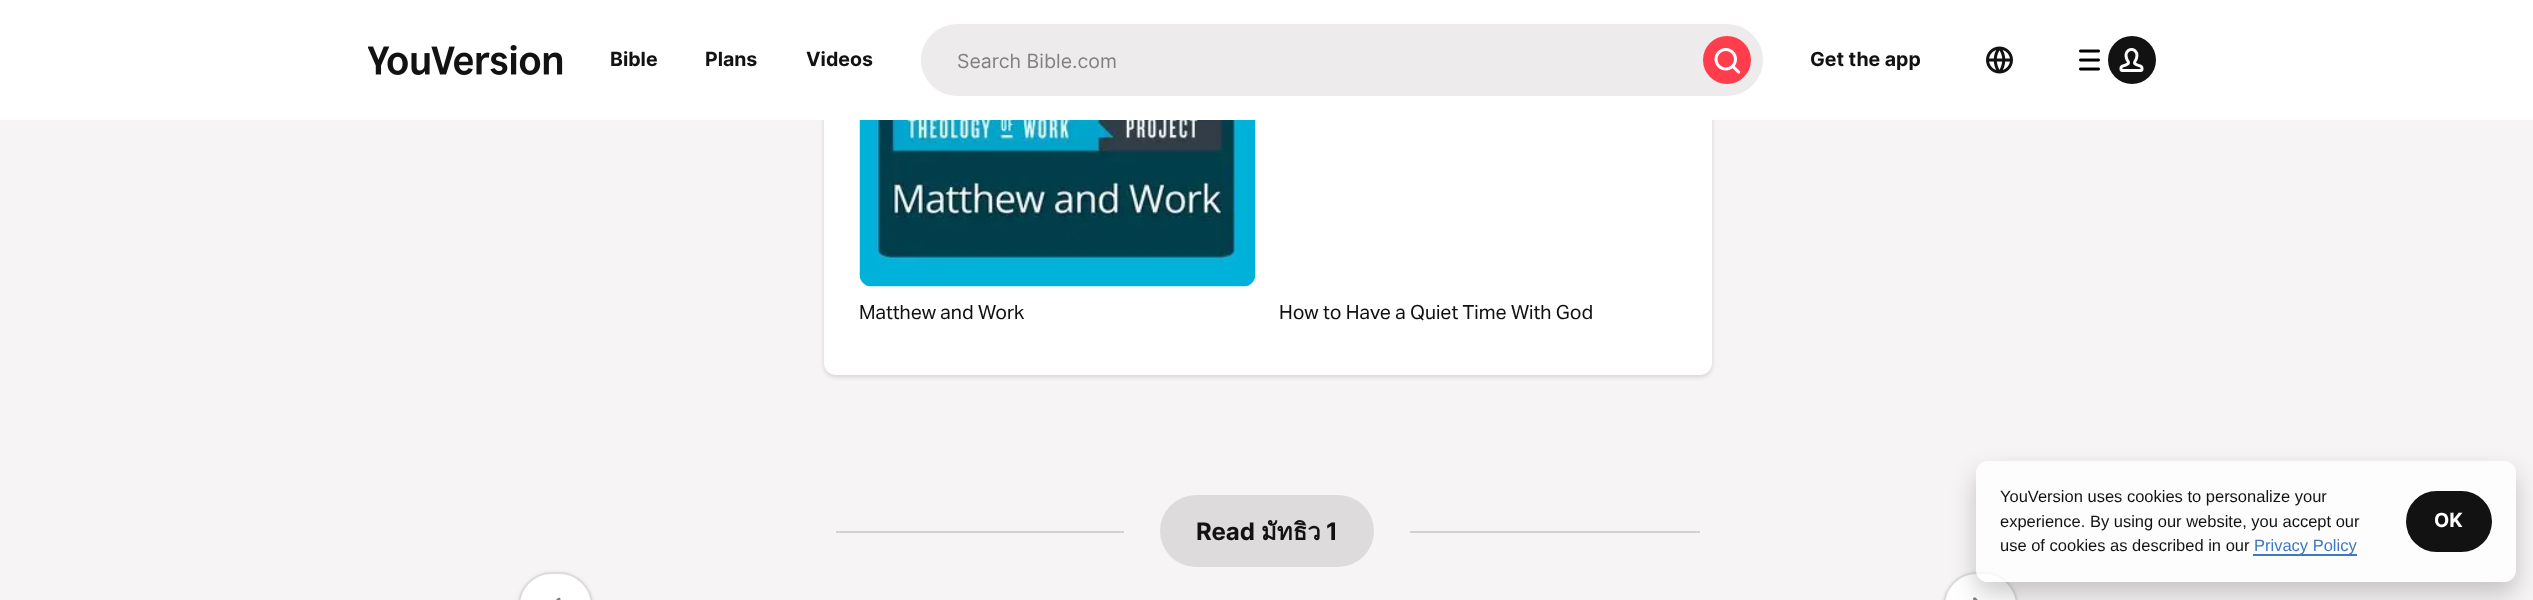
(async () => {
const canvas = document.querySelector("canvas")
canvas.width = 2533
canvas.height = 600
const c = canvas.getContext("2d")
c.miterLimit = 4
c.fontKerning = "normal"
function T(s,x,y){c.fillText(s,x,y)}
function R(x,y,w,h){c.fillRect(x,y,w,h)}
function Q(x,y,w,h,r){c.beginPath();c.roundRect(x,y,w,h,r);c.fill()}
async function I(src,x,y,w,h){const img=new Image();img.src=src;await img.decode();c.drawImage(img,x,y,w,h)}
let path
c.fillStyle="#f6f4f4"
R(0,0,2533,600)
c.fillStyle="#12121226"
c.filter="blur(2px)"
c.beginPath()
c.roundRect(824,-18,888,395,12)
c.fill()
c.filter="none"
c.fillStyle="#fff"
Q(824,-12,888,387,12)
R(0,0,2533,120)
await I("1.png",368,45,195,30)
c.font="bold 19.5px Inter"
c.fillStyle="#121212"
T("Bible",610,66)
T("Plans",705,66)
T("Videos",806,66)
c.fillStyle="#edebeb"
Q(921,24,842,72,36)
Q(921,36,770,48,24)
c.font="19.5px Inter"
c.fillStyle="#828080"
T("Search Bible.com",957,68)
c.fillStyle="#ff3d4d"
c.beginPath()
c.arc(1727,60,24,0,7)
c.fill()
await I("2.png",1714,48,27,26)
c.font="bold 19.5px Inter"
c.fillStyle="#121212"
T("Get the app",1810,66)
await I("3.png",1986,46,27,28)
await I("4.png",2079,49,21,22)
c.beginPath()
c.arc(2132,60,24,0,7)
c.fill()
await I("5.png",2119,48,25,24)
await I("6.png",859,120,397,167)
c.font="19.5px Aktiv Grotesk"
T("Matthew and Work",859,319)
T("How to Have a Quiet Time With God",1279,319)
c.fillStyle="#d0d2d2"
R(836,531,288,2)
c.fillStyle="#dddbdb"
Q(1160,495,214,72,36)
c.font="bold 24px Inter"
c.fillStyle="#121212"
T("Read",1196,540)
c.font="bold 24px Loma"
T("มัทธิว",1261,540)
c.font="bold 24px Inter"
T("1",1326,540)
c.fillStyle="#d0d2d2"
R(1410,531,290,2)
c.fillStyle="#12121226"
c.filter="blur(2px)"
c.beginPath()
c.roundRect(518,573,75,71,37.5)
c.fill()
c.filter="none"
c.fillStyle="#fff"
c.beginPath()
c.roundRect(519,573,73,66,36.5)
c.fill()
c.strokeStyle="#dddbdb"
c.lineWidth=2
c.stroke()
await I("7.png",556,597,5,3)
c.fillStyle="#12121226"
c.filter="blur(2px)"
c.beginPath()
c.roundRect(1943,573,75,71,37.5)
c.fill()
c.filter="none"
c.fillStyle="#fff"
c.beginPath()
c.roundRect(1944,573,73,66,36.5)
c.fill()
c.stroke()
await I("8.png",1973,597,5,3)
c.save()
path = new Path2D("M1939 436h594v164h-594zm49 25h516c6.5 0 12 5.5 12 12v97c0 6.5-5.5 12-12 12h-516c-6.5 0-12-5.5-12-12v-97c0-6.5 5.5-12 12-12z")
c.clip(path,"evenodd")
c.fillStyle="#00000033"
c.filter="blur(12px)"
c.beginPath()
c.roundRect(1976,473,540,121,12)
c.fill()
c.filter="none"
c.restore()
c.fillStyle="#ffffffcc"
Q(1976,461,540,121,12)
c.font="16.5px Liberation Sans"
c.fillStyle="#121212"
T("YouVersion uses cookies to personalize your",2000,502)
T("experience. By using our website, you accept our",2000,527)
T("use of cookies as described in our",2000,551)
c.fillStyle="#3d79c2"
R(2253,554,104,2)
T("Privacy Policy",2254,551)
c.fillStyle="#121212"
Q(2406,491,86,61,30.5)
c.font="bold 19.5px Inter"
c.fillStyle="#fff"
T("OK",2434,527)
})()
